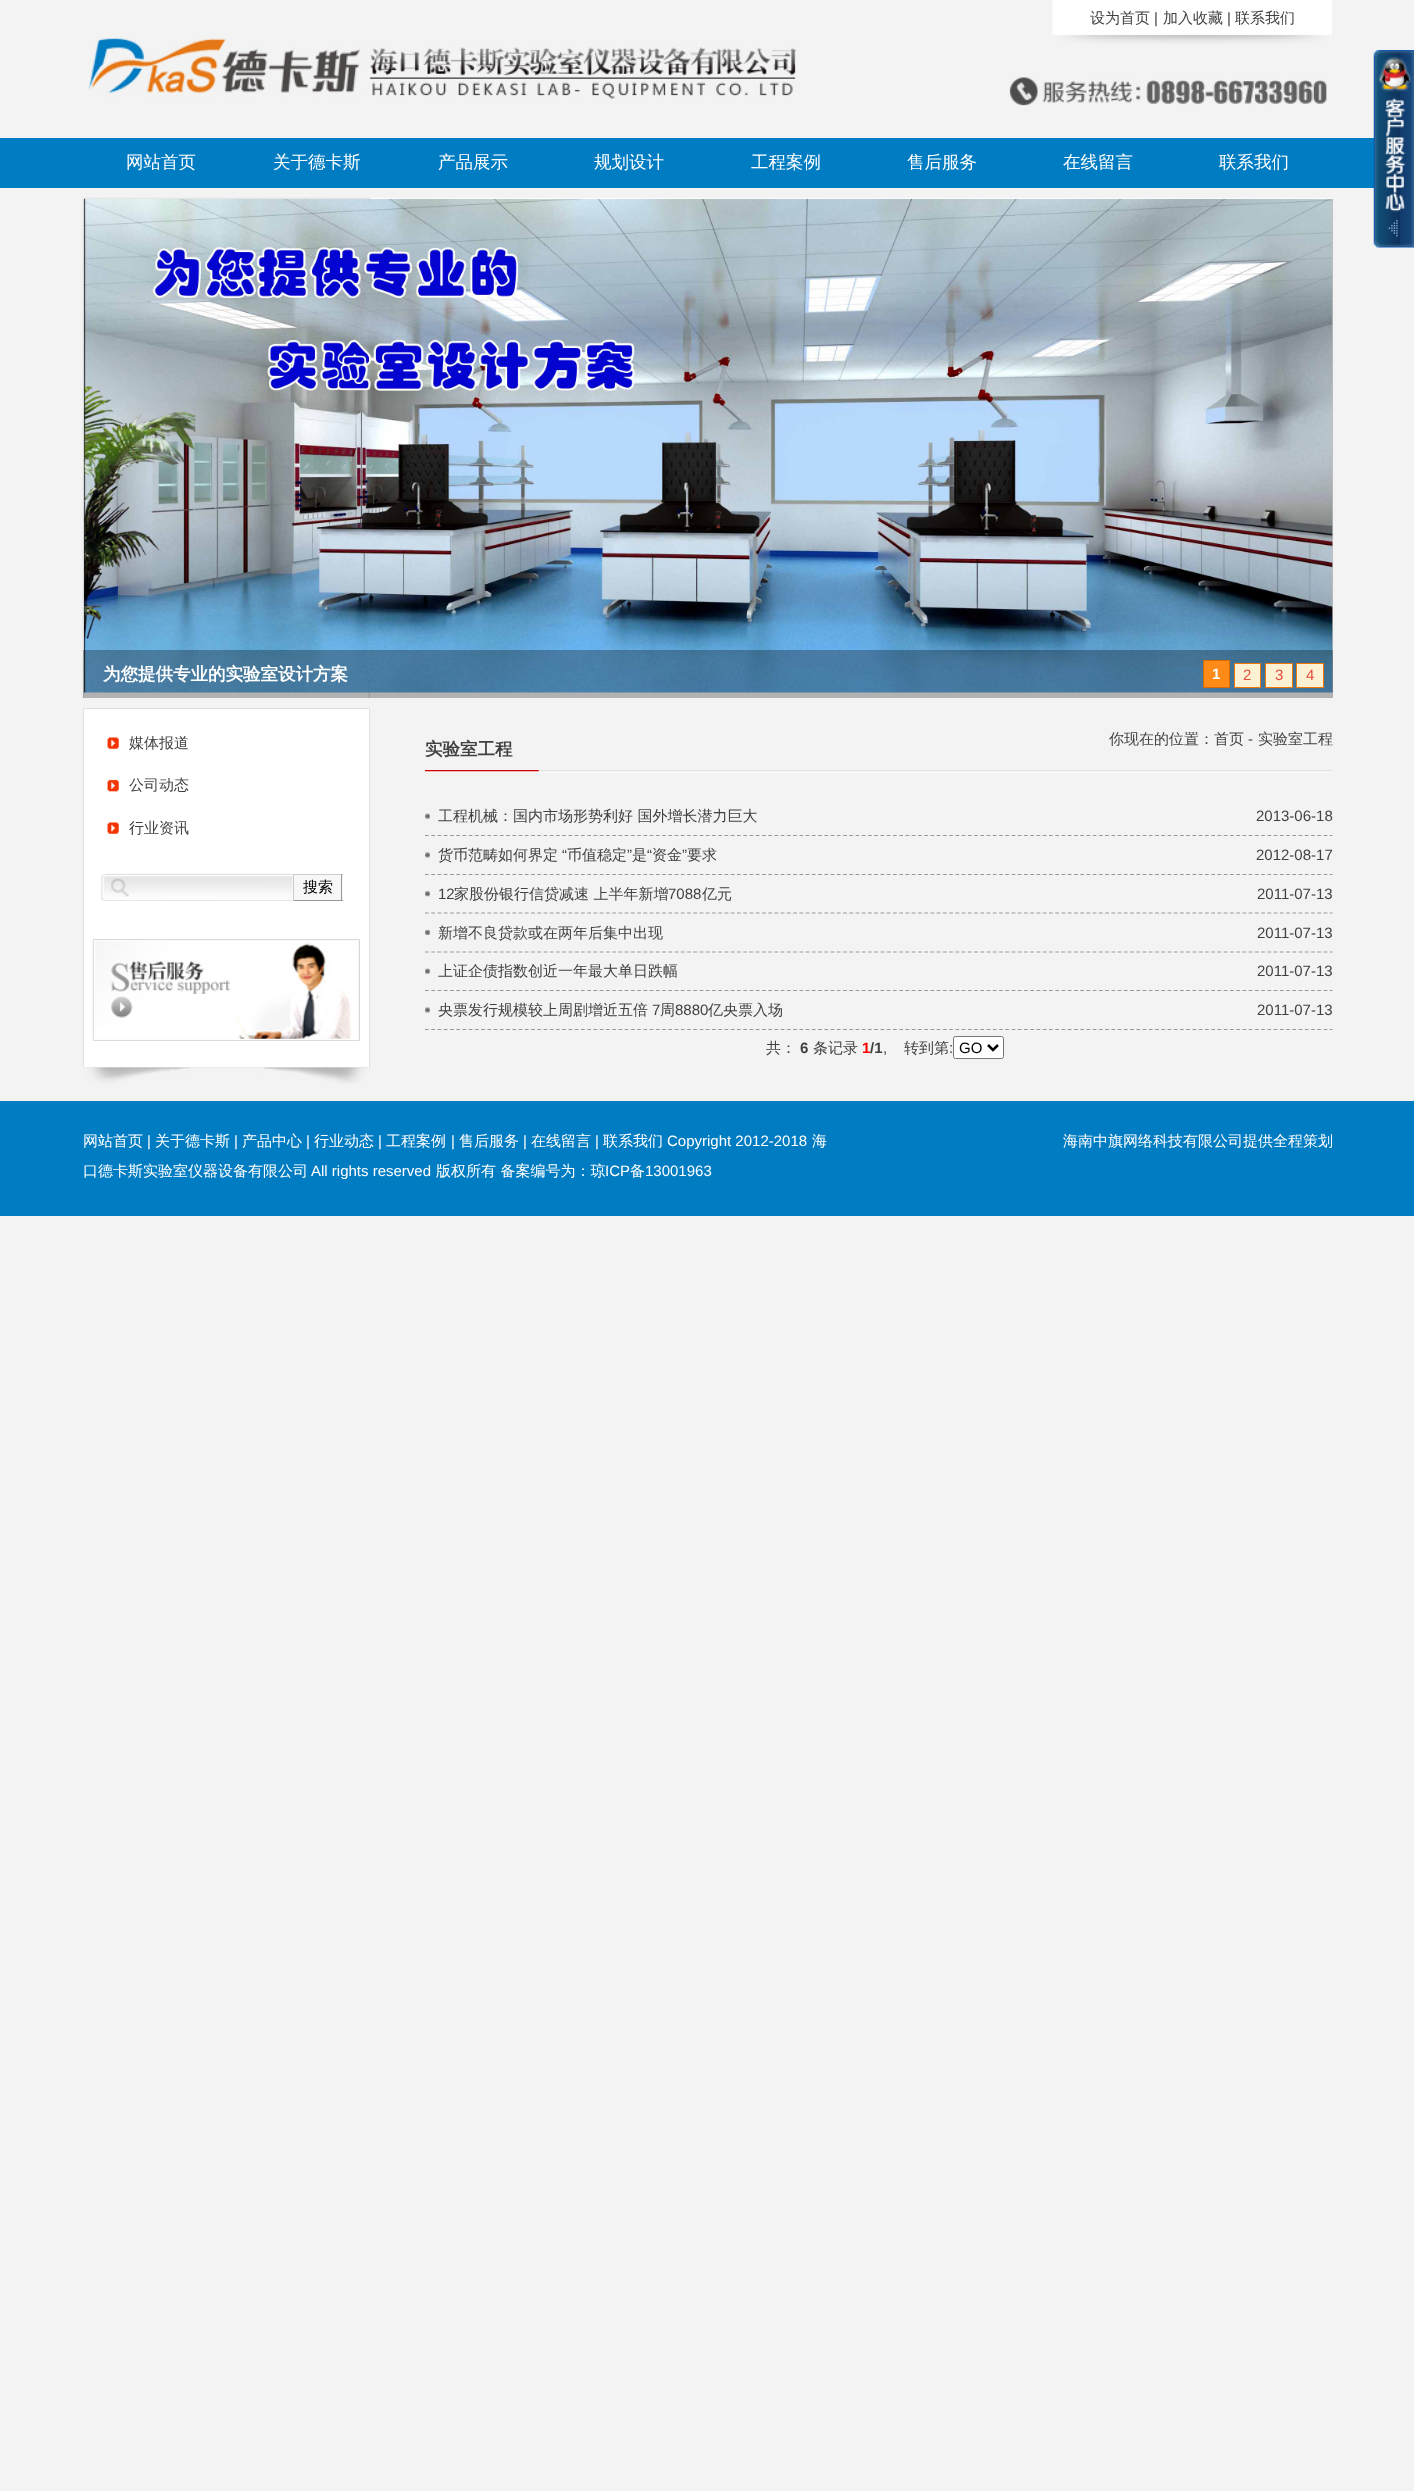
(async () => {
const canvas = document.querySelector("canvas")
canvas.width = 1414
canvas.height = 2491
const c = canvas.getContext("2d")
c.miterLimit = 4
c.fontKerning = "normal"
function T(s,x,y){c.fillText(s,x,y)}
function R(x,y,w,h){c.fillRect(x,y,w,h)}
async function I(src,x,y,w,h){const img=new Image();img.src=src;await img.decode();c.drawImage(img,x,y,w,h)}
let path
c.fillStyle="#f3f3f3"
R(0,0,1414,2491)
await I("1.png",1052,0,280,44)
c.font="500 15px WenQuanYi Zen Hei"
c.fillStyle="#414141"
T("设为首页",1090,23)
c.font="15px Liberation Sans"
T("|",1154,23)
c.font="500 15px WenQuanYi Zen Hei"
T("加入收藏",1163,23)
c.font="15px Liberation Sans"
T("|",1227,23)
c.font="500 15px WenQuanYi Zen Hei"
T("联系我们",1235,23)
await I("2.png",1009,77,318,29)
await I("3.png",88,38,709,62)
c.fillStyle="#007cc2"
R(0,138,1374,50)
c.font="500 17.5px WenQuanYi Zen Hei"
c.fillStyle="#fff"
T("网站首页",126,168)
T("关于德卡斯",273,168)
T("产品展示",438,168)
T("规划设计",594,168)
T("工程案例",751,168)
T("售后服务",907,168)
T("在线留言",1063,168)
T("联系我们",1219,168)
await I("4.png",1373,50,41,198)
R(83,198,1250,500)
await I("5.png",82,197,288,501)
await I("6.png",83,198,1250,495)
c.fillStyle="#0000004d"
R(83,650,1250,48)
c.font="bold 17.5px WenQuanYi Zen Hei"
c.fillStyle="#fff"
T("为您提供专业的实验室设计方案",103,680)
c.fillStyle="#fe8b18"
c.beginPath()
c.rect(1203.5,660.5,26,27)
c.fill()
c.strokeStyle="#d86c01"
c.stroke()
c.font="bold 15px Liberation Sans"
c.fillStyle="#fff"
T("1",1212,679)
c.fillStyle="#fdf1d4"
c.beginPath()
c.rect(1234.5,663.5,26,24)
c.fill()
c.strokeStyle="#f27602"
c.stroke()
c.font="15px Liberation Sans"
c.fillStyle="#e54b3b"
T("2",1243,680)
c.fillStyle="#fdf1d4"
c.beginPath()
c.rect(1265.5,663.5,27,24)
c.fill()
c.stroke()
c.fillStyle="#e54b3b"
T("3",1275,680)
c.fillStyle="#fdf1d4"
c.beginPath()
c.rect(1296.5,663.5,27,24)
c.fill()
c.stroke()
c.fillStyle="#e54b3b"
T("4",1306,680)
c.fillStyle="#fff"
c.beginPath()
c.rect(83.5,708.5,286,359)
c.fill()
c.strokeStyle="#e0e0e0"
c.stroke()
await I("7.png",107,737,12,12)
c.font="500 15px WenQuanYi Zen Hei"
c.fillStyle="#414141"
T("媒体报道",129,748)
await I("8.png",107,779,12,13)
T("公司动态",129,790)
await I("7.png",107,822,12,12)
T("行业资讯",129,833)
await I("9.png",101,873,192,28)
c.fillStyle="#f7f7f7"
R(294,875,49,25)
c.fillStyle="#ccc"
R(293,874,50,1)
c.fillStyle="#999"
R(341,874,1,27)
R(293,900,50,1)
c.fillStyle="#ccc"
R(293,874,1,27)
c.fillStyle="#000"
T("搜索",303,892)
await I("10.png",92,939,268,102)
await I("11.png",83,1067,287,17)
await I("12.png",425,770,908,3)
c.font="bold 17.5px WenQuanYi Zen Hei"
c.fillStyle="#414141"
T("实验室工程",425,755)
c.font="500 15px WenQuanYi Zen Hei"
T("你现在的位置：首页",1109,744)
c.font="15px Liberation Sans"
T("-",1248,744)
c.font="500 15px WenQuanYi Zen Hei"
T("实验室工程",1258,744)
await I("13.png",425,813,5,6)
path = new Path2D("M425 835.5h907.5")
c.strokeStyle="#999"
c.lineWidth=1.2
c.setLineDash([3.75,2.49])
c.stroke(path)
T("工程机械：国内市场形势利好 国外增长潜力巨大",438,821)
c.font="15px Liberation Sans"
T("2013-06-18",1256,821)
await I("14.png",425,852,5,6)
path = new Path2D("M425 874.5h907.5")
c.stroke(path)
c.font="500 15px WenQuanYi Zen Hei"
T("货币范畴如何界定",438,860)
c.font="15px Liberation Sans"
T("“",562,860)
c.font="500 15px WenQuanYi Zen Hei"
T("币值稳定",567,860)
c.font="15px Liberation Sans"
T("”",627,860)
c.font="500 15px WenQuanYi Zen Hei"
T("是",632,860)
c.font="15px Liberation Sans"
T("“",647,860)
c.font="500 15px WenQuanYi Zen Hei"
T("资金",652,860)
c.font="15px Liberation Sans"
T("”",682,860)
c.font="500 15px WenQuanYi Zen Hei"
T("要求",687,860)
c.font="15px Liberation Sans"
T("2012-08-17",1256,860)
await I("15.png",425,891,5,6)
path = new Path2D("M425 913h907.5")
c.stroke(path)
T("12",438,899)
c.font="500 15px WenQuanYi Zen Hei"
T("家股份银行信贷减速 上半年新增",454,899)
c.font="15px Liberation Sans"
T("7088",668,899)
c.font="500 15px WenQuanYi Zen Hei"
T("亿元",702,899)
c.font="15px Liberation Sans"
T("2011-07-13",1257,899)
await I("16.png",425,930,5,5)
path = new Path2D("M425 952h907.5")
c.stroke(path)
c.font="500 15px WenQuanYi Zen Hei"
T("新增不良贷款或在两年后集中出现",438,938)
c.font="15px Liberation Sans"
T("2011-07-13",1257,938)
await I("13.png",425,968,5,6)
path = new Path2D("M425 990.5h907.5")
c.stroke(path)
c.font="500 15px WenQuanYi Zen Hei"
T("上证企债指数创近一年最大单日跌幅",438,976)
c.font="15px Liberation Sans"
T("2011-07-13",1257,976)
await I("14.png",425,1007,5,6)
c.save()
c.beginPath()
c.rect(425,798,908,232)
c.clip()
path = new Path2D("M425 1029.5h907.5")
c.stroke(path)
c.restore()
c.font="500 15px WenQuanYi Zen Hei"
T("央票发行规模较上周剧增近五倍",438,1015)
c.font="15px Liberation Sans"
T("7",652,1015)
c.font="500 15px WenQuanYi Zen Hei"
T("周",660,1015)
c.font="15px Liberation Sans"
T("8880",675,1015)
c.font="500 15px WenQuanYi Zen Hei"
T("亿央票入场",708,1015)
c.font="15px Liberation Sans"
T("2011-07-13",1257,1015)
c.font="500 15px WenQuanYi Zen Hei"
T("共：",766,1053)
c.font="bold 15px Liberation Sans"
T("6",800,1053)
c.font="500 15px WenQuanYi Zen Hei"
T("条记录",813,1053)
c.font="bold 15px Liberation Sans"
c.fillStyle="#f00"
T("1",862,1053)
c.fillStyle="#414141"
T("/1",870,1053)
c.font="15px Liberation Sans"
T(",",883,1053)
c.font="500 15px WenQuanYi Zen Hei"
T("转到第",904,1053)
c.font="15px Liberation Sans"
T(":",949,1053)
c.fillStyle="#fff"
c.beginPath()
c.roundRect(953.5,1036.5,50,22,2)
c.fill()
c.strokeStyle="#767676"
c.lineWidth=1
c.setLineDash([])
c.stroke()
path = new Path2D("M988 1045l5 5l5-5")
c.strokeStyle="#000"
c.lineWidth=2.5
c.stroke(path)
c.fillStyle="#000"
T("GO",959,1053)
c.fillStyle="#007cc2"
R(0,1101,1414,115)
c.font="500 15px WenQuanYi Zen Hei"
c.fillStyle="#fff"
T("网站首页",83,1146)
c.font="15px Liberation Sans"
T("|",147,1146)
c.font="500 15px WenQuanYi Zen Hei"
T("关于德卡斯",155,1146)
c.font="15px Liberation Sans"
T("|",234,1146)
c.font="500 15px WenQuanYi Zen Hei"
T("产品中心",242,1146)
c.font="15px Liberation Sans"
T("|",306,1146)
c.font="500 15px WenQuanYi Zen Hei"
T("行业动态",314,1146)
c.font="15px Liberation Sans"
T("|",378,1146)
c.font="500 15px WenQuanYi Zen Hei"
T("工程案例",386,1146)
c.font="15px Liberation Sans"
T("|",451,1146)
c.font="500 15px WenQuanYi Zen Hei"
T("售后服务",459,1146)
c.font="15px Liberation Sans"
T("|",523,1146)
c.font="500 15px WenQuanYi Zen Hei"
T("在线留言",531,1146)
c.font="15px Liberation Sans"
T("|",595,1146)
c.font="500 15px WenQuanYi Zen Hei"
T("联系我们",603,1146)
c.font="15px Liberation Sans"
T("Copyright 2012-2018",667,1146)
c.font="500 15px WenQuanYi Zen Hei"
T("海",812,1146)
T("口德卡斯实验室仪器设备有限公司",83,1176)
c.font="15px Liberation Sans"
T("All rights reserved",311,1176)
c.font="500 15px WenQuanYi Zen Hei"
T("版权所有 备案编号为：琼",436,1176)
c.font="15px Liberation Sans"
T("ICP",605,1176)
c.font="500 15px WenQuanYi Zen Hei"
T("备",630,1176)
c.font="15px Liberation Sans"
T("13001963",645,1176)
c.font="500 15px WenQuanYi Zen Hei"
T("海南中旗网络科技有限公司提供全程策划",1063,1146)
})()
